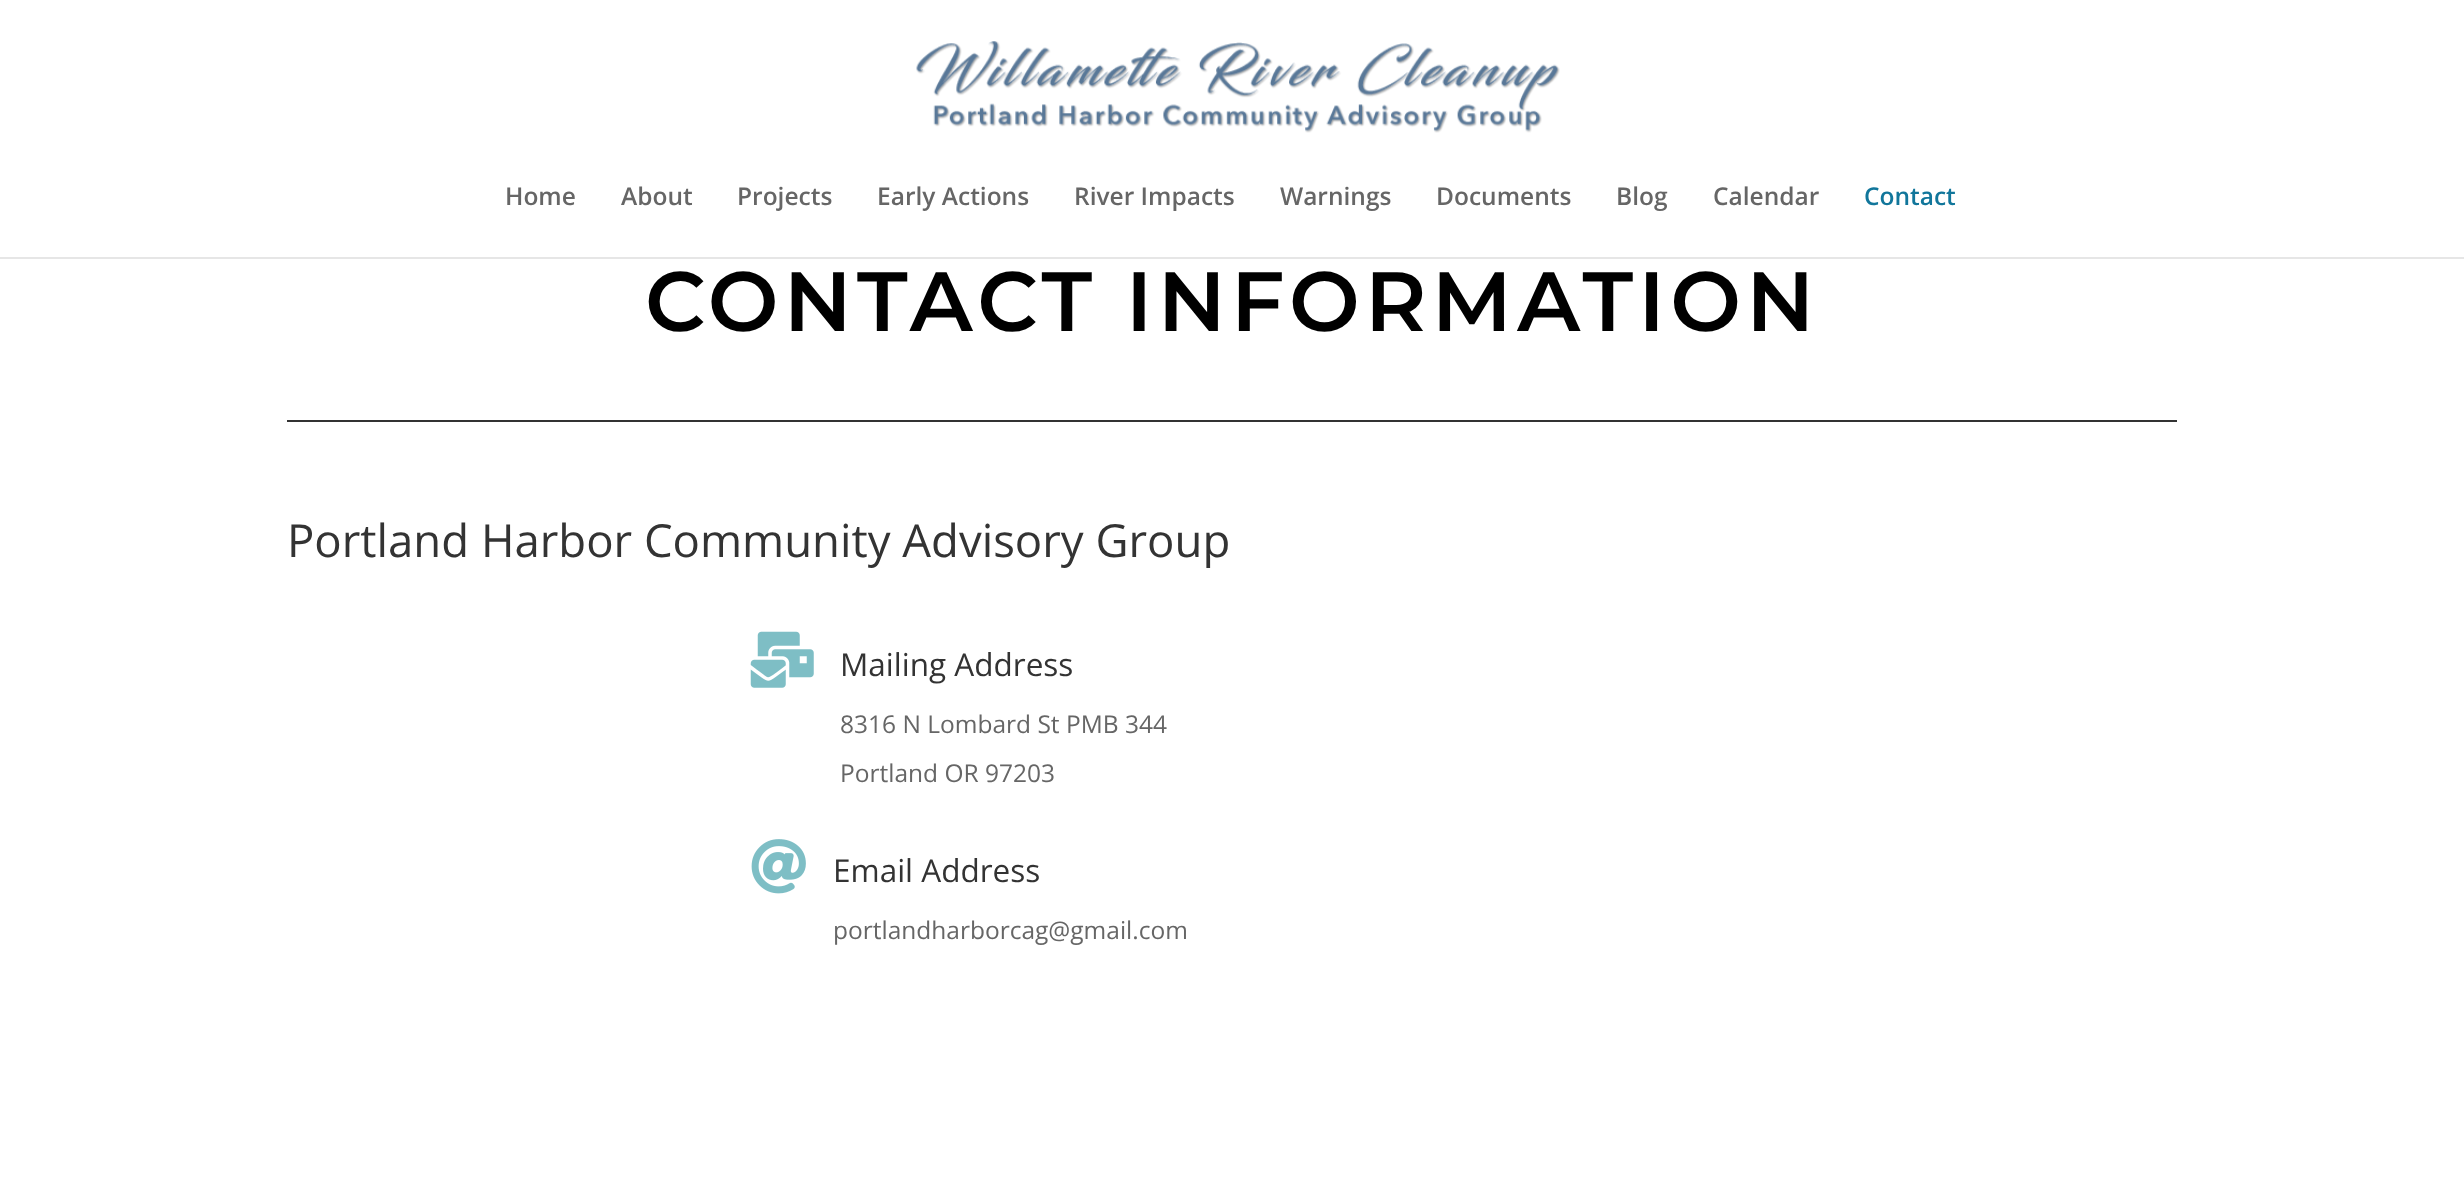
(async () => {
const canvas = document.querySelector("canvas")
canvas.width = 2464
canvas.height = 1202
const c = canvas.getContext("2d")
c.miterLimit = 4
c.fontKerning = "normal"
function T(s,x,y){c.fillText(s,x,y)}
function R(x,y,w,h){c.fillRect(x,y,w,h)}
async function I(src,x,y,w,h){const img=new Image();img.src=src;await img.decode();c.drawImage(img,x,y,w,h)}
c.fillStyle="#fff"
R(0,0,2464,1202)
c.fillStyle="#e6e6e6"
R(0,257,2464,2)
await I("1.png",916,41,644,92)
c.font="600 24.5px Open Sans"
c.fillStyle="#666"
T("Home",505,205)
T("About",621,205)
T("Projects",737,205)
T("Early Actions",877,205)
T("River Impacts",1074,205)
T("Warnings",1280,205)
T("Documents",1436,205)
T("Blog",1616,205)
T("Calendar",1713,205)
c.fillStyle="#11769b"
T("Contact",1864,205)
c.fillStyle="#333"
R(287,420,1890,2)
c.letterSpacing="5.25px"
c.font="100 84px Montserrat"
c.fillStyle="#000"
T("CONTACT INFORMATION",645,331)
c.letterSpacing="0px"
c.font="45.5px Open Sans"
c.fillStyle="#333"
T("Portland Harbor Community Advisory Group",287,557)
await I("2.png",750,631,64,57)
c.font="31.5px Open Sans"
T("Mailing Address",840,676)
c.font="24.5px Open Sans"
c.fillStyle="#666"
T("8316 N Lombard St PMB 344",840,733)
T("Portland OR 97203",840,782)
await I("3.png",751,839,55,55)
c.font="31.5px Open Sans"
c.fillStyle="#333"
T("Email Address",833,882)
c.font="24.5px Open Sans"
c.fillStyle="#666"
T("portlandharborcag@gmail.com",833,939)
})()
